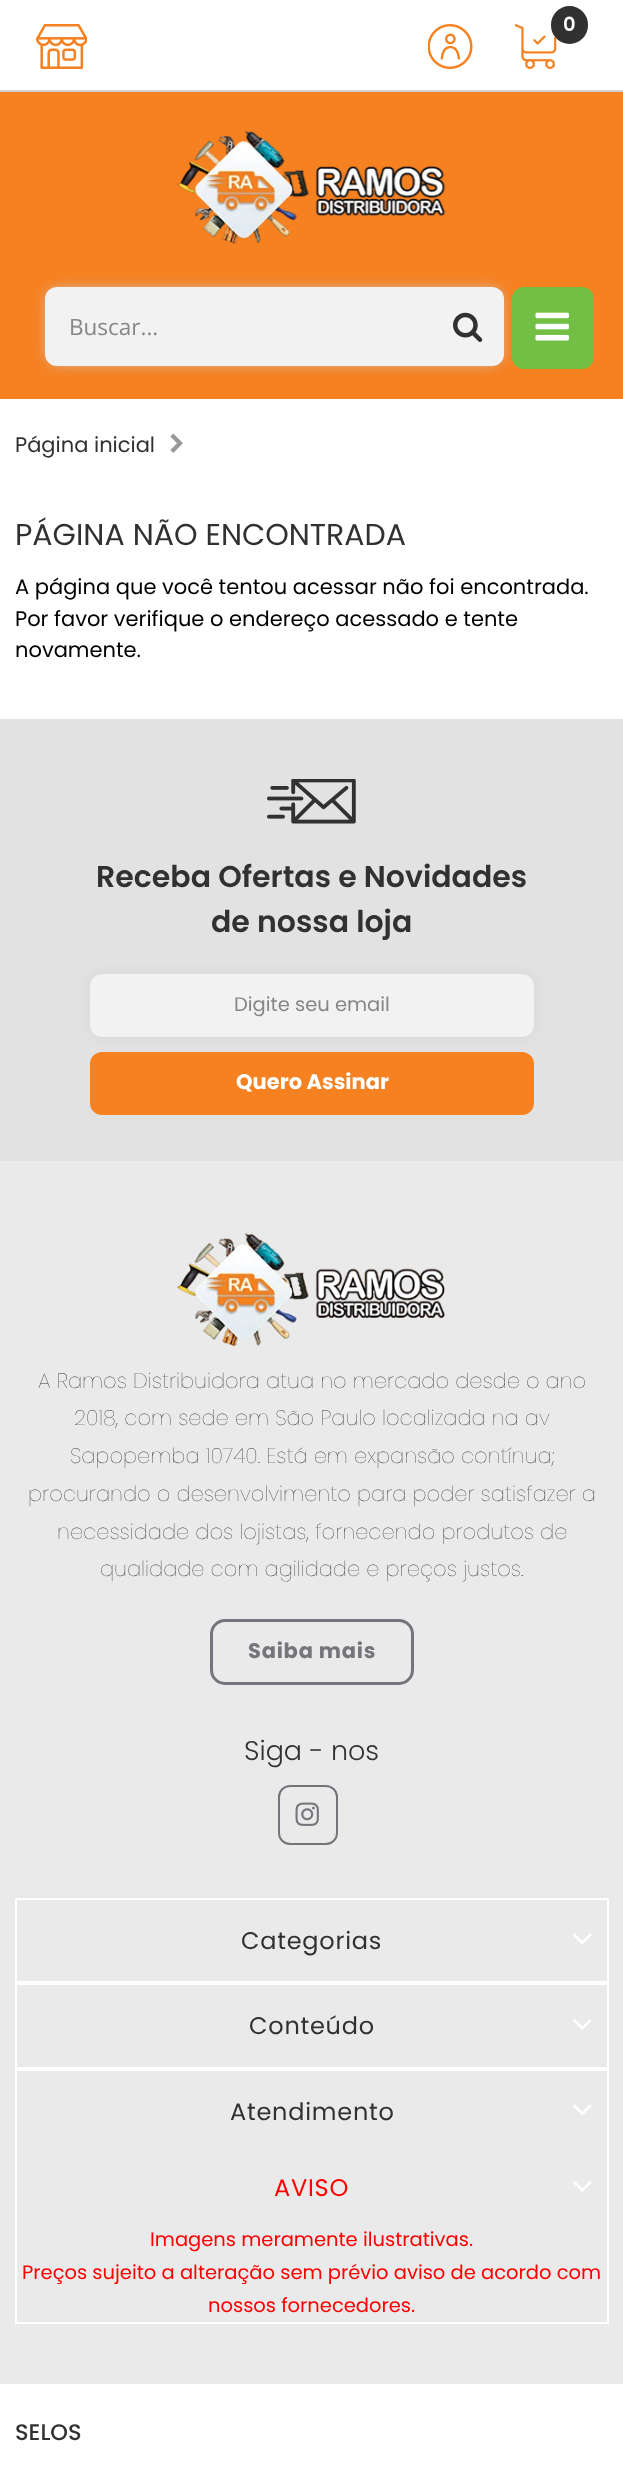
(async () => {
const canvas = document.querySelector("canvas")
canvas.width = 623
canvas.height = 2465
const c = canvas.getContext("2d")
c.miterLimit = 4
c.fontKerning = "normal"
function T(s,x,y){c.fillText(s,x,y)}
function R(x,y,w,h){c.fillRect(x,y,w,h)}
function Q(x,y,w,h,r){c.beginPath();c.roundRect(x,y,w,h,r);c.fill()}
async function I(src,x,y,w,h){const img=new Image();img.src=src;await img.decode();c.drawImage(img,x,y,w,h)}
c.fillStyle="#fff"
R(0,0,623,2465)
c.fillStyle="#f68121"
R(0,92,623,307)
c.fillStyle="#d0d0d0"
R(0,90,623,2)
await I("1.png",36,24,51,45)
await I("2.png",428,24,45,45)
c.fillStyle="#313131"
Q(551,6,37,38,18.5)
await I("3.png",515,24,42,45)
c.font="600 19.5px Poppins"
c.fillStyle="#fff"
T("0",563,31)
await I("4.png",177,130,269,114)
c.fillStyle="#72bf44"
Q(512,287,82,82,12)
c.fillStyle="#ccc"
c.filter="blur(7px)"
c.beginPath()
c.roundRect(48,290,453,73,9)
c.fill()
c.filter="none"
c.fillStyle="#f2f2f2"
Q(45,287,459,79,12)
c.font="22.5px Open Sans"
c.fillStyle="#868686"
T("Buscar...",69,335)
await I("5.png",453,312,30,30)
await I("6.png",535,312,34,29)
c.font="21px Poppins"
c.fillStyle="#313131"
T("Página inicial",15,452)
await I("7.png",170,433,13,20)
c.font="30px Poppins"
T("PÁGINA NÃO ENCONTRADA",15,545)
c.font="21px Poppins"
c.fillStyle="#000"
T("A página que você tentou acessar não foi encontrada.",15,594)
T("Por favor verifique o endereço acessado e tente",15,626)
T("novamente.",15,657)
c.fillStyle="#e2e2e2"
R(0,719,623,442)
await I("8.png",267,779,89,45)
c.font="600 30px Poppins"
c.fillStyle="#313131"
T("Receba Ofertas e Novidades",96,887)
T("de nossa loja",211,932)
c.fillStyle="#ccc"
c.filter="blur(7px)"
c.beginPath()
c.roundRect(93,977,438,57,9)
c.fill()
c.filter="none"
c.fillStyle="#f2f2f2"
Q(90,974,444,63,12)
c.font="19.5px Poppins"
c.fillStyle="#868686"
T("Digite seu email",234,1011)
c.fillStyle="#f68121"
c.beginPath()
c.roundRect(91.5,1053.5,441,60,10.5)
c.fill()
c.strokeStyle="#f68121"
c.lineWidth=3
c.stroke()
c.font="bold 21px Poppins"
c.fillStyle="#fff"
T("Quero Assinar",236,1089)
c.fillStyle="#eaeaea"
R(0,1161,623,1223)
await I("9.png",177,1233,268,113)
c.font="200 21px Poppins"
c.fillStyle="#313131"
T("A Ramos Distribuidora atua no mercado desde o ano",38,1388)
T("2018, com sede em São Paulo localizada na av",74,1425)
T("Sapopemba 10740. Está em expansão contínua;",70,1463)
T("procurando o desenvolvimento para poder satisfazer a",28,1501)
T("necessidade dos lojistas, fornecendo produtos de",57,1539)
T("qualidade com agilidade e preços justos.",100,1576)
c.beginPath()
c.roundRect(211.5,1620.5,201,63,13.5)
c.strokeStyle="#75757b"
c.stroke()
c.letterSpacing="0.75px"
c.font="bold 21px Poppins"
c.fillStyle="#75757b"
T("Saiba mais",248,1658)
c.letterSpacing="0px"
c.font="300 27px Poppins"
c.fillStyle="#313131"
T("Siga - nos",244,1760)
c.beginPath()
c.roundRect(279,1786,58,58,11)
c.lineWidth=2
c.stroke()
await I("10.png",295,1802,24,24)
c.strokeStyle="#fff"
c.strokeRect(16,1899,592,83)
c.letterSpacing="0.75px"
c.font="24px Poppins"
T("Categorias",241,1949)
await I("11.png",573,1933,19,12)
c.strokeRect(16,1984,592,84)
T("Conteúdo",249,2034)
await I("12.png",573,2019,19,11)
c.strokeRect(16,2070,592,253)
T("Atendimento",230,2120)
await I("11.png",573,2104,19,12)
c.fillStyle="#f00"
T("AVISO",274,2196)
await I("12.png",573,2181,19,11)
c.letterSpacing="0px"
c.font="19.5px Poppins"
T("Imagens meramente ilustrativas.",150,2246)
T("Preços sujeito a alteração sem prévio aviso de acordo com",22,2279)
T("nossos fornecedores.",208,2312)
c.font="500 22.5px Poppins"
c.fillStyle="#313131"
T("SELOS",15,2440)
})()
